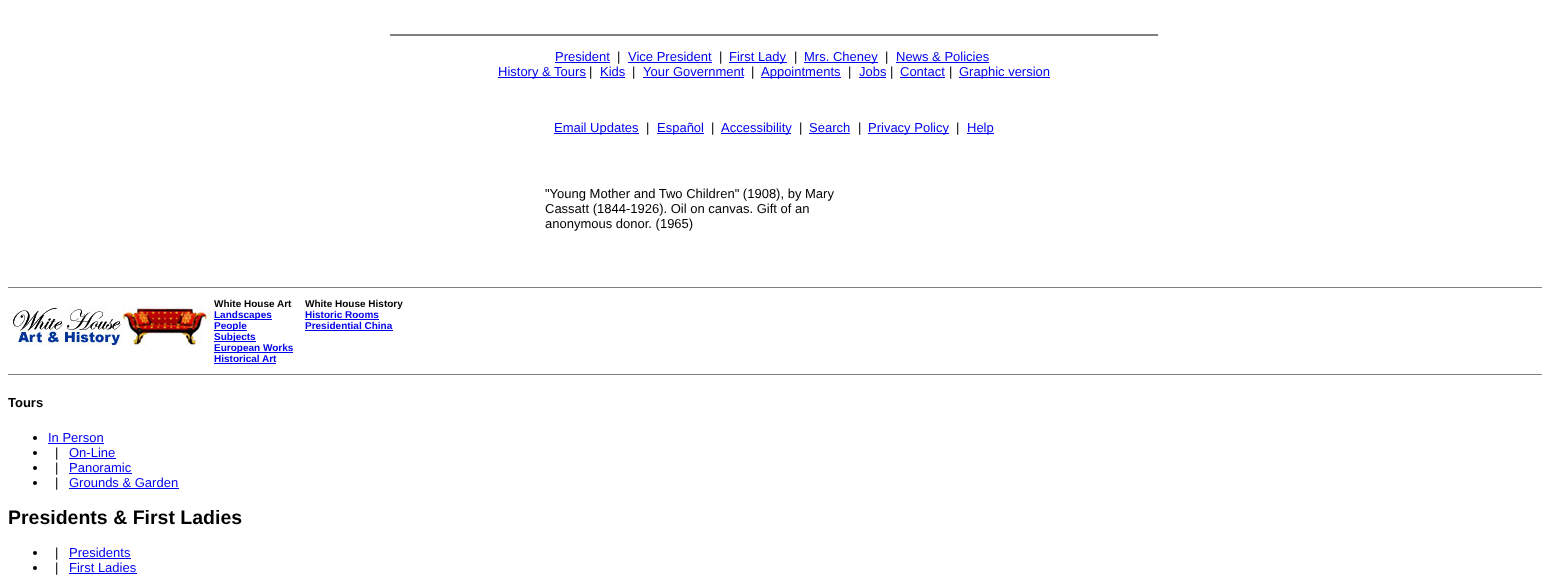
(async () => {
const canvas = document.querySelector("canvas")
canvas.width = 1548
canvas.height = 577
const c = canvas.getContext("2d")
c.miterLimit = 4
c.fontKerning = "normal"
function T(s,x,y){c.fillText(s,x,y)}
function R(x,y,w,h){c.fillRect(x,y,w,h)}
async function I(src,x,y,w,h){const img=new Image();img.src=src;await img.decode();c.drawImage(img,x,y,w,h)}
c.fillStyle="#fff"
R(0,0,1548,577)
c.fillStyle="#808080"
R(390,34,768,2)
c.font="13px Liberation Sans"
c.fillStyle="#00e"
T("President",555,61)
R(555,62,55,1)
c.fillStyle="#000"
T("|",617,61)
c.fillStyle="#00e"
T("Vice President",628,61)
R(628,62,84,1)
c.fillStyle="#000"
T("|",719,61)
c.fillStyle="#00e"
R(729,62,58,1)
T("First Lady",729,61)
c.fillStyle="#000"
T("|",794,61)
c.fillStyle="#00e"
R(804,62,74,1)
T("Mrs. Cheney",804,61)
c.fillStyle="#000"
T("|",885,61)
c.fillStyle="#00e"
T("News & Policies",896,61)
R(896,62,93,1)
R(498,77,88,1)
T("History & Tours",498,76)
c.fillStyle="#000"
T("|",589,76)
c.fillStyle="#00e"
T("Kids",600,76)
R(600,77,25,1)
c.fillStyle="#000"
T("|",632,76)
c.fillStyle="#00e"
T("Your Government",643,76)
R(643,77,101,1)
c.fillStyle="#000"
T("|",751,76)
c.fillStyle="#00e"
R(761,77,80,1)
T("Appointments",761,76)
c.fillStyle="#000"
T("|",848,76)
c.fillStyle="#00e"
T("Jobs",859,76)
R(859,77,27,1)
c.fillStyle="#000"
T("|",890,76)
c.fillStyle="#00e"
T("Contact",900,76)
R(900,77,45,1)
c.fillStyle="#000"
T("|",949,76)
c.fillStyle="#00e"
R(959,77,91,1)
T("Graphic version",959,76)
R(554,133,85,1)
T("Email Updates",554,132)
c.fillStyle="#000"
T("|",646,132)
c.fillStyle="#00e"
R(657,133,47,1)
T("Español",657,132)
c.fillStyle="#000"
T("|",711,132)
c.fillStyle="#00e"
R(721,133,70,1)
T("Accessibility",721,132)
c.fillStyle="#000"
T("|",799,132)
c.fillStyle="#00e"
T("Search",809,132)
R(809,133,41,1)
c.fillStyle="#000"
T("|",858,132)
c.fillStyle="#00e"
R(868,133,81,1)
T("Privacy Policy",868,132)
c.fillStyle="#000"
T("|",956,132)
c.fillStyle="#00e"
R(967,133,27,1)
T("Help",967,132)
c.fillStyle="#000"
T("\"Young Mother and Two Children\" (1908), by Mary",545,198)
T("Cassatt (1844-1926). Oil on canvas. Gift of an",545,213)
T("anonymous donor. (1965)",545,228)
c.fillStyle="#808080"
R(8,287,1534,1)
await I("1.png",10,306,200,40)
c.font="bold 10px Liberation Sans"
c.fillStyle="#000"
T("White House Art",214,307)
c.fillStyle="#00e"
R(214,319,58,1)
T("Landscapes",214,318)
R(214,330,33,1)
T("People",214,329)
R(214,341,42,1)
T("Subjects",214,340)
R(214,352,79,1)
T("European Works",214,351)
T("Historical Art",214,362)
R(214,363,62,1)
c.fillStyle="#000"
T("White House History",305,307)
c.fillStyle="#00e"
T("Historic Rooms",305,318)
R(305,319,74,1)
T("Presidential China",305,329)
R(305,330,88,1)
c.fillStyle="#808080"
R(8,374,1534,1)
c.font="bold 13px Liberation Sans"
c.fillStyle="#000"
T("Tours",8,407)
c.beginPath()
c.arc(35,438,2,0,7)
c.fill()
c.font="13px Liberation Sans"
c.fillStyle="#00e"
T("In Person",48,442)
R(48,443,56,1)
c.fillStyle="#000"
c.beginPath()
c.arc(35,453,2,0,7)
c.fill()
T("|",55,457)
c.fillStyle="#00e"
T("On-Line",69,457)
R(69,458,47,1)
c.fillStyle="#000"
c.beginPath()
c.arc(35,468,2,0,7)
c.fill()
T("|",55,472)
c.fillStyle="#00e"
T("Panoramic",69,472)
R(69,473,63,1)
c.fillStyle="#000"
c.beginPath()
c.arc(35,483,2,0,7)
c.fill()
T("|",55,487)
c.fillStyle="#00e"
T("Grounds & Garden",69,487)
R(69,488,110,1)
c.font="bold 19.5px Liberation Sans"
c.fillStyle="#000"
T("Presidents & First Ladies",8,524)
c.beginPath()
c.arc(35,553,2,0,7)
c.fill()
c.font="13px Liberation Sans"
T("|",55,557)
c.fillStyle="#00e"
T("Presidents",69,557)
R(69,558,62,1)
c.fillStyle="#000"
c.beginPath()
c.arc(35,568,2,0,7)
c.fill()
T("|",55,572)
c.fillStyle="#00e"
T("First Ladies",69,572)
R(69,573,68,1)
})()
